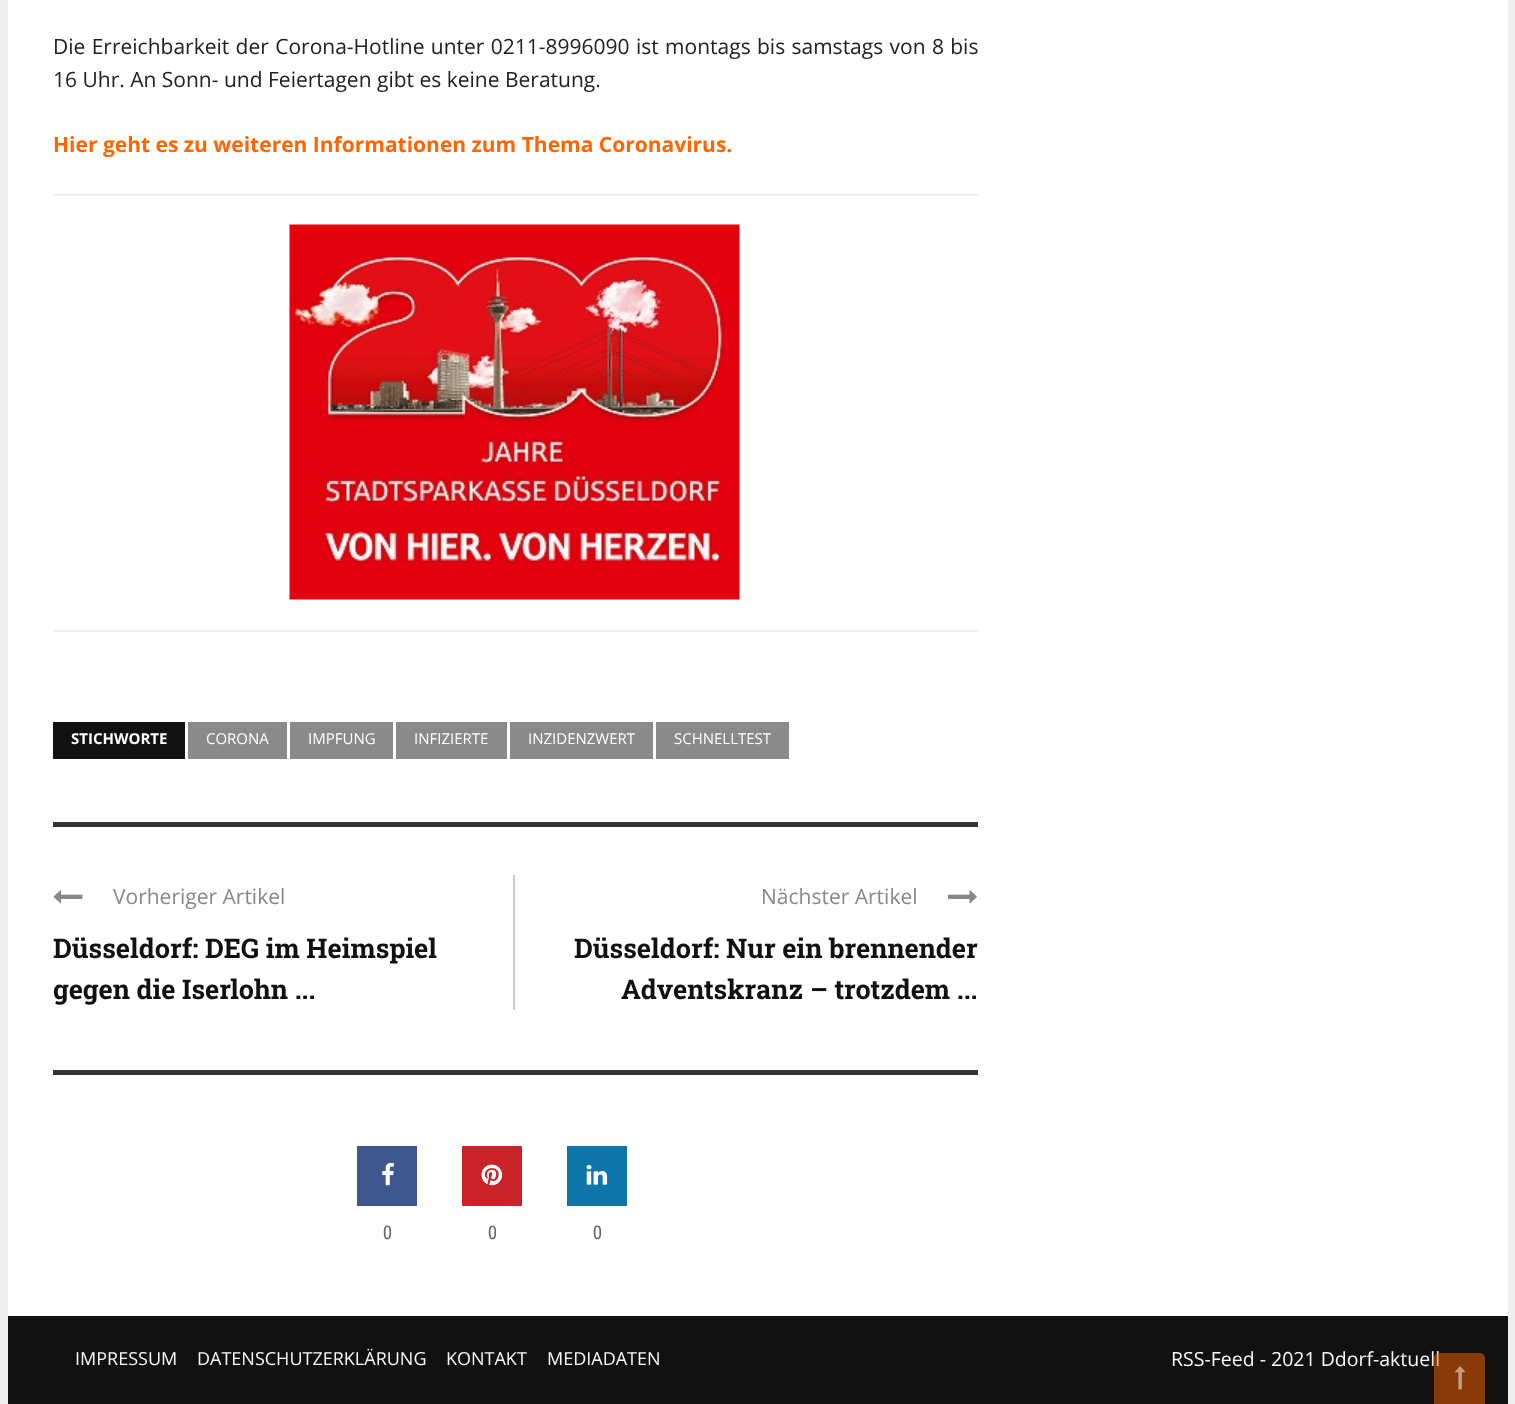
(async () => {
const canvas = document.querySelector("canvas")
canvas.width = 1515
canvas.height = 1404
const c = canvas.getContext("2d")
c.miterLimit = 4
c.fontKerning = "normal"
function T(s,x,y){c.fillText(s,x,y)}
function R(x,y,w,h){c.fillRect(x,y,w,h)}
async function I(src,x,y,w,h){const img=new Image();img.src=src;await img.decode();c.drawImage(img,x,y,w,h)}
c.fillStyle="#eee"
R(0,0,1515,1404)
c.fillStyle="#fff"
R(8,0,1500,1316)
c.wordSpacing="0.9px"
c.font="21px Open Sans"
c.fillStyle="#212121"
T("Die Erreichbarkeit der Corona-Hotline unter 0211-8996090 ist montags bis samstags von 8 bis",53,54)
c.wordSpacing="0px"
T("16 Uhr. An Sonn- und Feiertagen gibt es keine Beratung.",53,87)
c.font="bold 21px Open Sans"
c.fillStyle="#f60"
T("Hier geht es zu weiteren Informationen zum Thema Coronavirus.",53,152)
c.fillStyle="#eee"
R(53,194,925,2)
await I("1.png",289,224,451,376)
R(53,630,925,2)
c.fillStyle="#111"
R(53,722,132,37)
c.font="bold 15px Open Sans"
c.fillStyle="#fff"
T("STICHWORTE",71,744)
c.fillStyle="#8a8a8a"
R(188,722,99,37)
c.font="15px Open Sans"
c.fillStyle="#fff"
T("CORONA",206,744)
c.fillStyle="#8a8a8a"
R(290,722,103,37)
c.fillStyle="#fff"
T("IMPFUNG",308,744)
c.fillStyle="#8a8a8a"
R(396,722,111,37)
c.fillStyle="#fff"
T("INFIZIERTE",414,744)
c.fillStyle="#8a8a8a"
R(510,722,143,37)
c.fillStyle="#fff"
T("INZIDENZWERT",528,744)
c.fillStyle="#8a8a8a"
R(656,722,133,37)
c.fillStyle="#fff"
T("SCHNELLTEST",674,744)
c.fillStyle="#333"
R(53,822,925,5)
c.fillStyle="#ccc"
R(513,875,2,135)
await I("2.png",53,890,30,14)
c.font="21px Open Sans"
c.fillStyle="#888"
T("Vorheriger Artikel",113,904)
c.font="bold 27px Roboto Slab"
c.fillStyle="#111"
T("Düsseldorf: DEG im Heimspiel",53,958)
T("gegen die Iserlohn ...",53,999)
c.font="21px Open Sans"
c.fillStyle="#888"
T("Nächster Artikel",761,904)
await I("3.png",948,890,29,14)
c.font="bold 27px Roboto Slab"
c.fillStyle="#111"
T("Düsseldorf: Nur ein brennender",574,958)
T("Adventskranz – trotzdem ...",621,999)
c.fillStyle="#333"
R(53,1070,925,5)
c.fillStyle="#3e578c"
R(357,1146,60,60)
await I("4.png",382,1162,12,24)
c.font="19.5px Archivo Narrow"
c.fillStyle="#666"
T("0",383,1239)
c.fillStyle="#c92228"
R(462,1146,60,60)
await I("5.png",481,1164,22,22)
c.fillStyle="#666"
T("0",488,1239)
c.fillStyle="#0e76a8"
R(567,1146,60,60)
await I("6.png",586,1164,22,21)
c.fillStyle="#666"
T("0",593,1239)
c.fillStyle="#111"
R(8,1316,1500,88)
c.font="18px Open Sans"
c.fillStyle="#f8f8f8"
T("IMPRESSUM",75,1365)
T("DATENSCHUTZERKLÄRUNG",197,1365)
T("KONTAKT",446,1365)
T("MEDIADATEN",547,1365)
c.font="19.5px Open Sans"
T("RSS-Feed - 2021 Ddorf-aktuell",1171,1366)
c.fillStyle="#ff660080"
c.beginPath()
c.roundRect(1434,1353,51,51,[5,5,0,0])
c.fill()
await I("7.png",1455,1366,11,24)
})()
